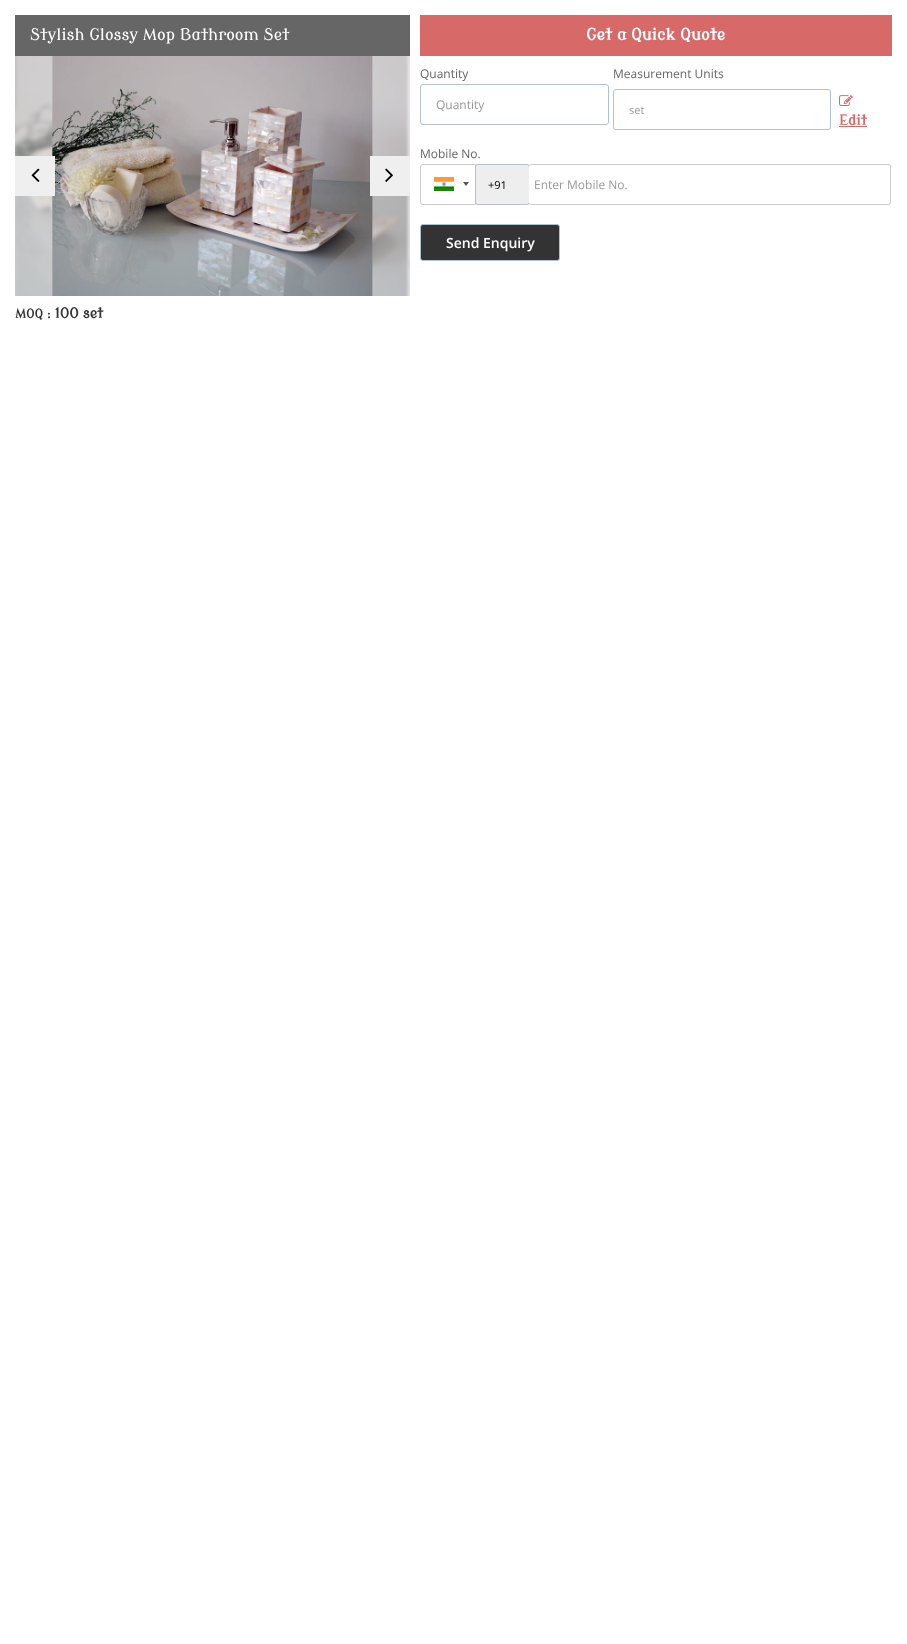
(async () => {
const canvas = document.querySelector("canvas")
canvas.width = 907
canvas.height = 1644
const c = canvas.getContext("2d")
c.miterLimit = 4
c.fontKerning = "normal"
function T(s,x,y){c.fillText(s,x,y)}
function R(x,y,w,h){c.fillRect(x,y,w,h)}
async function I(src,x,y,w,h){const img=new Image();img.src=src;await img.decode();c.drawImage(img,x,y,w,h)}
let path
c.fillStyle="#fff"
R(0,0,907,1644)
c.fillStyle="#666"
R(15,15,395,41)
c.font="16px Modern Antiqua"
c.fillStyle="#fff"
T("Stylish Glossy Mop Bathroom Set",30,40)
await I("1.png",15,56,5,240)
c.save()
c.beginPath()
c.rect(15,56,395,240)
c.clip()
c.fillStyle="#ffffff80"
c.filter="blur(2px)"
c.beginPath()
c.rect(-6,46,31,260)
c.fill()
c.filter="none"
c.restore()
await I("2.png",15,56,395,240)
c.fillStyle="#d86969"
R(420,15,472,41)
c.beginPath()
c.roundRect(420.5,84.5,188,40,2.5)
c.strokeStyle="#b2c1cf"
c.stroke()
c.fillStyle="#333"
c.beginPath()
c.roundRect(420.5,224.5,139,36,2.5)
c.fill()
c.stroke()
c.save()
c.beginPath()
c.rect(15,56,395,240)
c.clip()
c.fillStyle="#ffffff80"
c.filter="blur(2px)"
c.beginPath()
c.rect(15,46,404,260)
c.fill()
c.filter="none"
c.restore()
await I("4.png",406,56,4,240)
c.beginPath()
c.roundRect(613.5,89.5,217,40,2.5)
c.stroke()
c.save()
c.beginPath()
c.rect(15,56,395,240)
c.clip()
c.fillStyle="#ffffff80"
c.filter="blur(2px)"
c.beginPath()
c.rect(409,46,405,260)
c.fill()
c.filter="none"
c.restore()
c.fillStyle="#00000008"
R(15,56,394,240)
await I("3.png",52,56,321,240)
R(409,56,1,240)
c.fillStyle="#efefef"
R(15,156,40,40)
await I("5.png",31,168,9,14)
R(370,156,40,40)
await I("6.png",385,168,8,14)
c.font="bold 12.5px Modern Antiqua"
c.fillStyle="#333"
T("MOQ :",15,318)
c.font="bold 14px Modern Antiqua"
T("100 set",55,318)
c.font="bold 16px Modern Antiqua"
c.fillStyle="#fff"
T("Get a Quick Quote",586,40)
c.font="12px Open Sans"
c.fillStyle="#666"
T("Quantity",420,78)
c.fillStyle="#999"
T("Quantity",436,109)
c.fillStyle="#666"
T("Measurement Units",613,78)
c.font="11px Open Sans"
c.fillStyle="#999"
T("set",629,114)
await I("7.png",839,95,14,11)
c.font="bold 14px Modern Antiqua"
c.fillStyle="#d86969"
T("Edit",839,125)
R(839,126,28,1)
c.font="12px Open Sans"
c.fillStyle="#666"
T("Mobile No.",420,158)
c.beginPath()
c.roundRect(420.5,164.5,55,40,[2.5,0,0,2.5])
c.strokeStyle="#ccc"
c.stroke()
c.fillStyle="#888"
c.filter="blur(0.5px)"
c.beginPath()
c.rect(434,177,20,14)
c.fill()
c.filter="none"
await I("8.png",434,177,20,14)
c.fillStyle="#555"
path = new Path2D("M463 182h6l-3 4z")
c.fill(path)
c.fillStyle="#eee"
c.beginPath()
c.roundRect(475.5,164.5,54,40,2.5)
c.fill()
c.strokeStyle="#b2c1cf"
c.stroke()
c.font="11px Open Sans"
c.fillStyle="#000"
T("+91",488,189)
c.fillStyle="#fff"
path = new Path2D("M532 165h356c1 0 2 1 2 2v35c0 1-1 2-2 2h-356c-2 0-3-1-3-2v-35c0-1 1-2 3-2z")
c.fill(path)
c.fillStyle="#ccc"
path = new Path2D("M532 164h356c2 0 3 1 3 3v35c0 2-1 3-3 3h-356c-2 0-3-1-3-3v-35c0-2 1-3 3-3zm0 1h356c1 0 2 1 2 2v35c0 1-1 2-2 2h-356c-2 0-3-1-3-2v-35c0-1 1-2 3-2z")
c.fill(path,"evenodd")
c.font="12px Open Sans"
c.fillStyle="#999"
T("Enter Mobile No.",534,189)
c.font="600 14px Open Sans"
c.fillStyle="#fff"
T("Send Enquiry",446,248)
})()
